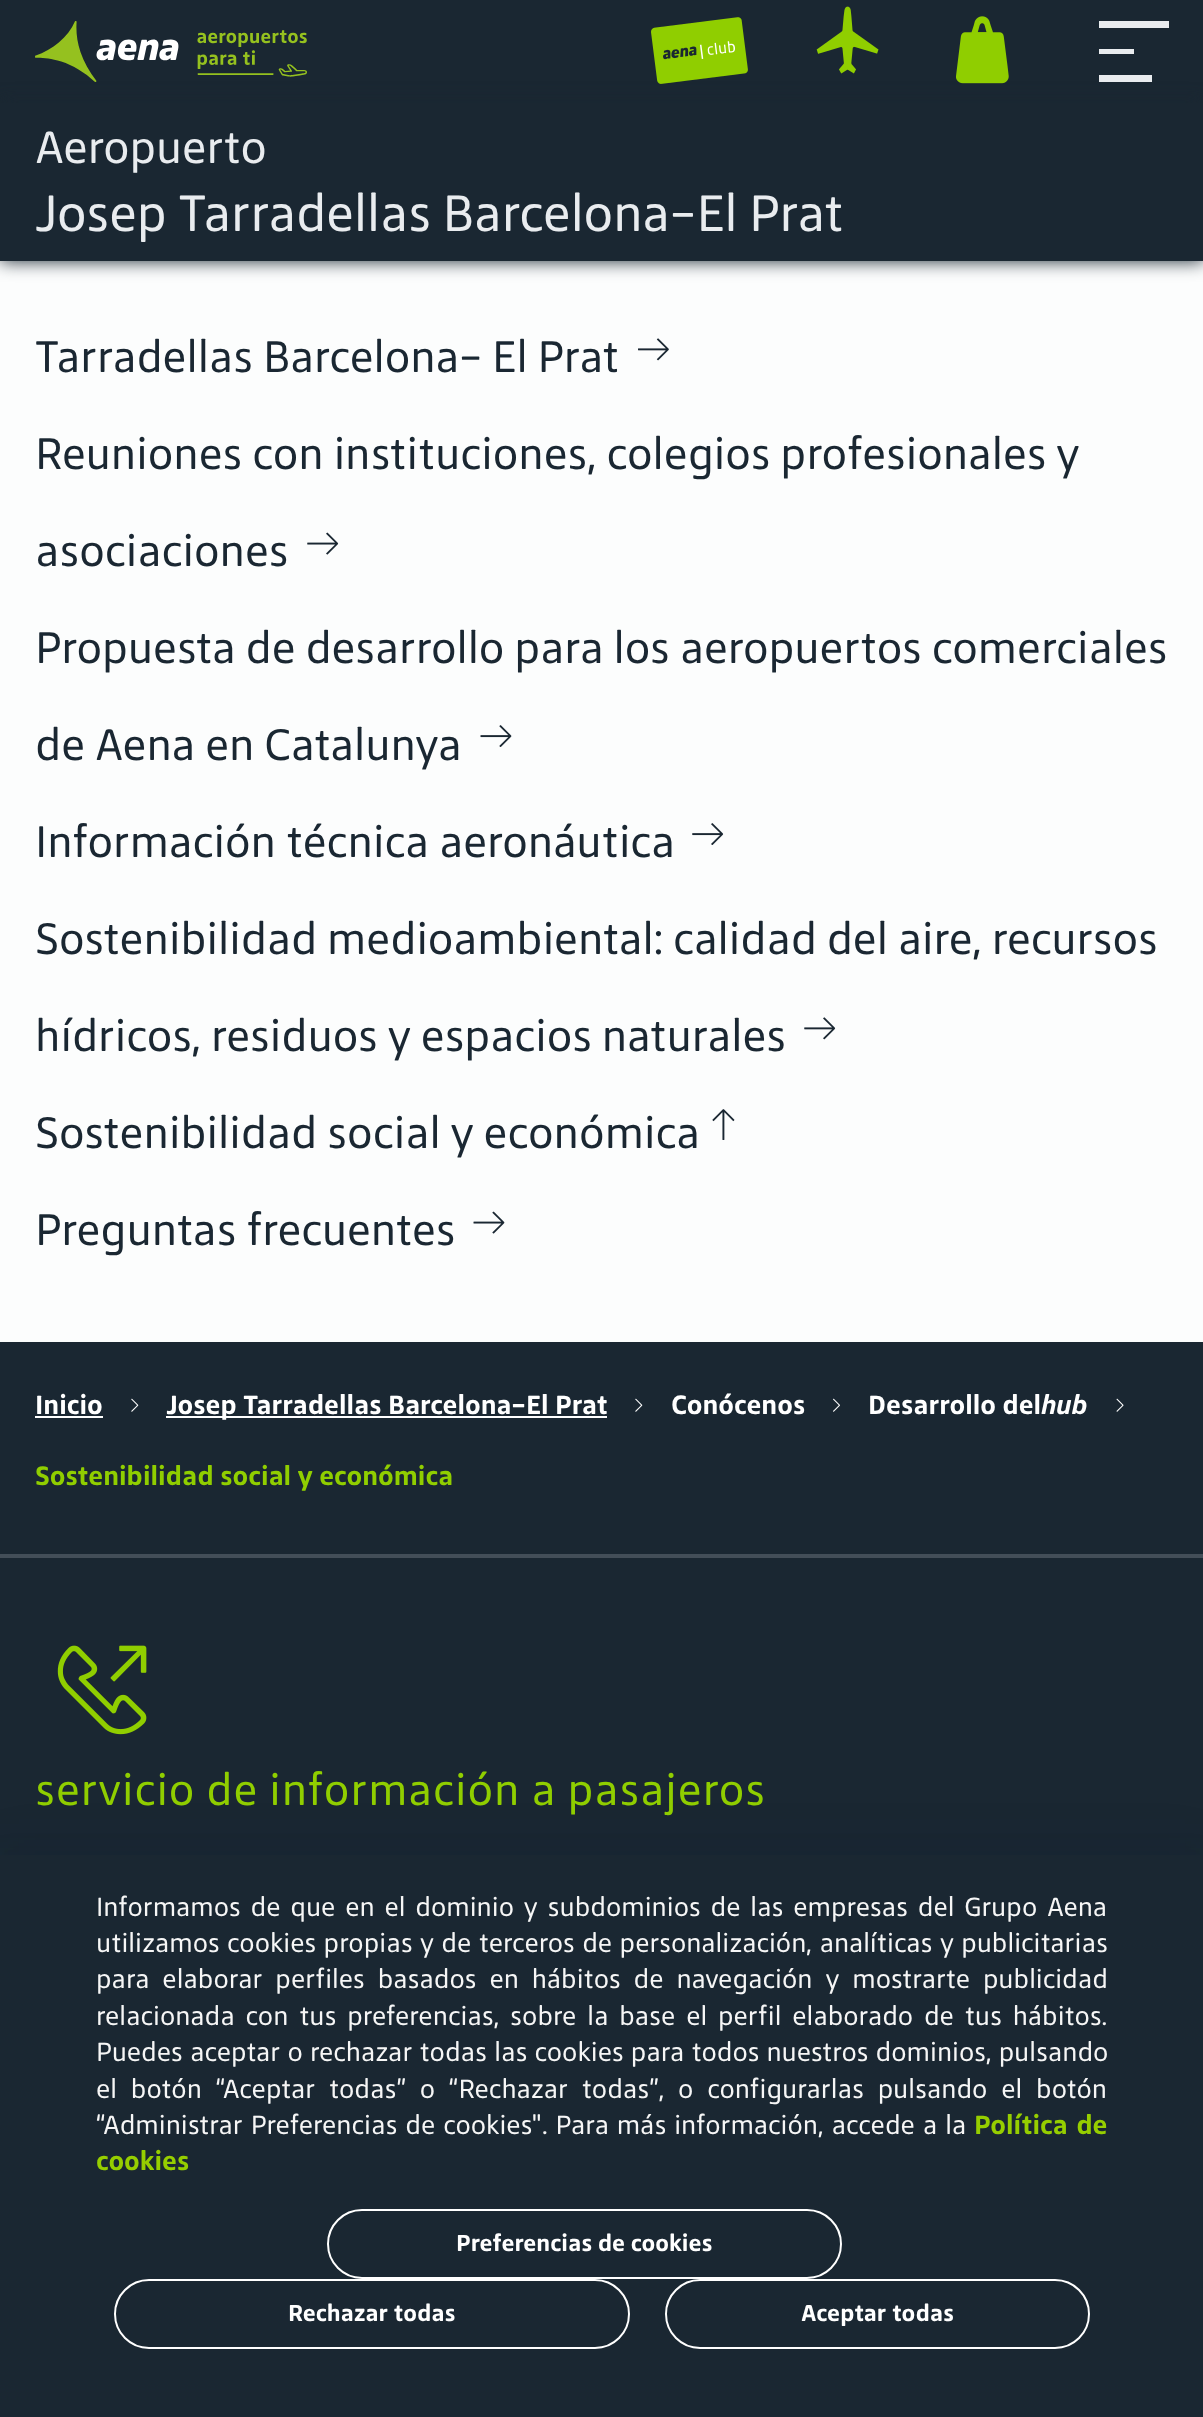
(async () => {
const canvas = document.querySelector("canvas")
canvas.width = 1203
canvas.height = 2417
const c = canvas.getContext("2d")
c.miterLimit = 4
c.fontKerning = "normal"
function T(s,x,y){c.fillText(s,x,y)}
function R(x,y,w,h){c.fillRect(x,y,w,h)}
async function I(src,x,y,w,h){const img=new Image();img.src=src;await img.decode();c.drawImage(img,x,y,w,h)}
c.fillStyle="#fcfdfd"
R(0,0,1203,2417)
c.fillStyle="#1a2732"
R(0,0,1203,103)
c.filter="blur(9px)"
c.beginPath()
c.rect(0,103,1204,158)
c.fill()
c.filter="none"
await I("1.png",35,21,272,61)
await I("2.png",651,17,97,67)
await I("3.png",700,41,35,18)
await I("4.png",816,6,63,68)
await I("5.png",956,16,53,68)
c.fillStyle="#e9ecef"
R(1099,21,70,7)
R(1099,49,35,5)
R(1099,75,53,7)
c.fillStyle="#1a2732"
R(0,103,1203,158)
c.font="48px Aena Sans"
c.fillStyle="#e9ecef"
T("Aeropuerto",35,163)
c.font="54.2px Aena Sans"
T("Josep Tarradellas Barcelona-El Prat",35,231)
c.font="46.8px Aena Sans"
c.fillStyle="#1a2732"
T("Tarradellas Barcelona- El Prat",35,372)
await I("6.png",638,338,31,23)
T("Reuniones con instituciones, colegios profesionales y",35,469)
T("asociaciones",35,566)
await I("7.png",307,532,32,23)
T("Propuesta de desarrollo para los aeropuertos comerciales",35,663)
T("de Aena en Catalunya",35,760)
await I("8.png",480,725,32,22)
T("Información técnica aeronáutica",35,857)
await I("9.png",692,823,32,22)
T("Sostenibilidad medioambiental: calidad del aire, recursos",35,954)
T("hídricos, residuos y espacios naturales",35,1051)
await I("10.png",804,1017,32,23)
T("Sostenibilidad social y económica",35,1148)
await I("11.png",712,1109,23,31)
T("Preguntas frecuentes",35,1245)
await I("12.png",473,1211,32,23)
R(0,1342,1203,513)
c.font="bold 28px Aena Sans"
c.fillStyle="#fff"
T("Inicio",35,1414)
R(35,1416,68,2)
await I("13.png",131,1398,8,14)
R(166,1416,441,2)
T("Josep Tarradellas Barcelona-El Prat",166,1414)
await I("13.png",635,1398,8,14)
T("Conócenos",671,1414)
await I("14.png",833,1398,7,14)
T("Desarrollo del",868,1414)
c.font="italic bold 28px Aena Sans"
T("hub",1041,1414)
await I("15.png",1116,1398,8,14)
c.font="bold 28px Aena Sans"
c.fillStyle="#90ce00"
T("Sostenibilidad social y económica",35,1485)
c.fillStyle="#434e58"
R(0,1554,1203,4)
await I("16.png",57,1645,90,90)
c.letterSpacing="1px"
c.font="46.8px Aena Sans"
c.fillStyle="#90ce00"
T("servicio de información a pasajeros",35,1805)
c.fillStyle="#010f320d"
c.filter="blur(21px)"
c.beginPath()
c.rect(0,1838,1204,563)
c.fill()
c.filter="none"
c.filter="blur(9px)"
c.beginPath()
c.rect(0,1848,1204,564)
c.fill()
c.filter="none"
c.fillStyle="#1a2732"
R(0,1855,1203,562)
c.letterSpacing="0px"
c.wordSpacing="3.9px"
c.font="28px Aena Sans"
c.fillStyle="#f6f6f6"
T("Informamos de que en el dominio y subdominios de las empresas del Grupo Aena",96,1916)
c.wordSpacing="1.5px"
T("utilizamos cookies propias y de terceros de personalización, analíticas y publicitarias",96,1952)
c.wordSpacing="7px"
T("para elaborar perfiles basados en hábitos de navegación y mostrarte publicidad",96,1988)
c.wordSpacing="4.9px"
T("relacionada con tus preferencias, sobre la base el perfil elaborado de tus hábitos.",96,2025)
c.wordSpacing="1.25px"
T("Puedes aceptar o rechazar todas las cookies para todos nuestros dominios, pulsando",96,2061)
c.wordSpacing="7.9px"
T("el botón “Aceptar todas” o “Rechazar todas”, o configurarlas pulsando el botón",96,2098)
c.wordSpacing="2px"
T("“Administrar Preferencias de cookies\"",96,2134)
T(". Para más información, accede a la",542,2134)
c.font="bold 28px Aena Sans"
c.fillStyle="#96ce00"
T("Política de",974,2134)
c.wordSpacing="0px"
T("cookies",96,2170)
c.beginPath()
c.roundRect(328,2210,513,68,34)
c.strokeStyle="#fff"
c.lineWidth=2
c.stroke()
c.font="bold 24.5px Aena Sans"
c.fillStyle="#fff"
T("Preferencias de cookies",456,2251)
c.beginPath()
c.roundRect(115,2280,514,68,34)
c.stroke()
T("Rechazar todas",288,2321)
c.beginPath()
c.roundRect(666,2280,423,68,34)
c.stroke()
T("Aceptar todas",801,2321)
})()
